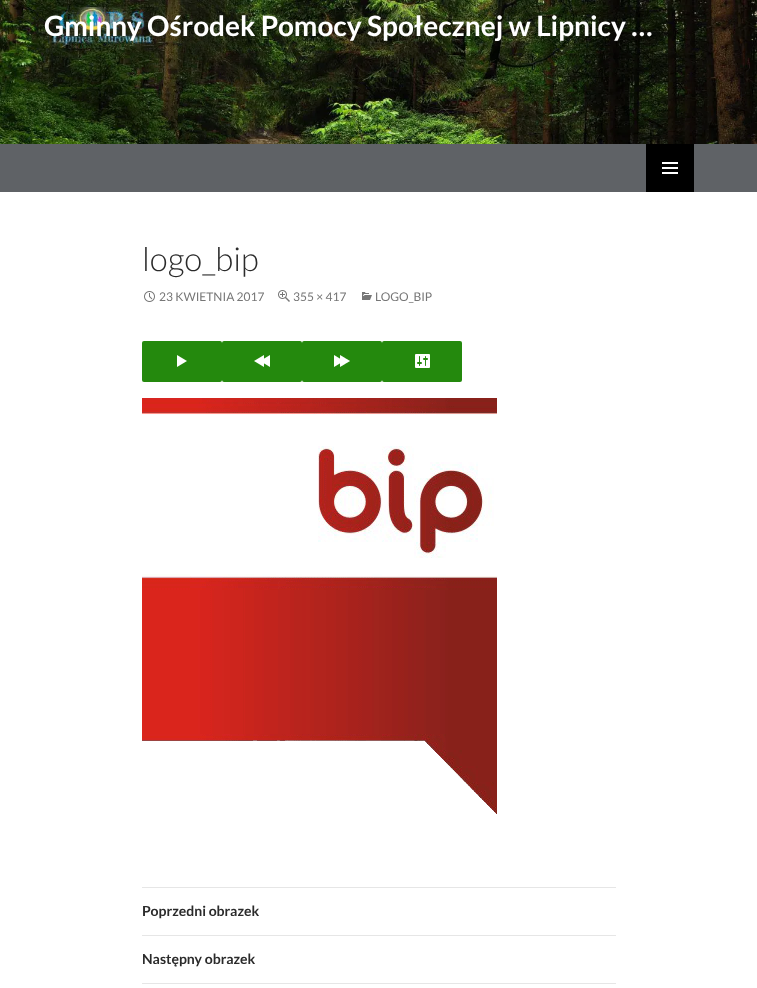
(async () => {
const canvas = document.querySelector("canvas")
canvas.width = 757
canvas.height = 988
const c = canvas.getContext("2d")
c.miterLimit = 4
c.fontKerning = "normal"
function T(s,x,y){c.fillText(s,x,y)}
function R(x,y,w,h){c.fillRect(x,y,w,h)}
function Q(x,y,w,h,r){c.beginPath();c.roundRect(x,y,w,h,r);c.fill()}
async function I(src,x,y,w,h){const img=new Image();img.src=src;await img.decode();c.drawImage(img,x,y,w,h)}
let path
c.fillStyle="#fff"
R(0,0,757,988)
await I("1.png",0,0,757,144)
c.fillStyle="#5f6266"
R(0,144,757,48)
c.font="bold 28px Lato"
c.fillStyle="#fff"
T("Gminny Ośrodek Pomocy Społecznej w Lipnicy …",44,36)
c.fillStyle="#000"
R(646,144,48,48)
await I("2.png",662,162,16,12)
c.font="300 33px Lato"
c.fillStyle="#2b2b2b"
T("logo_bip",142,271)
await I("3.png",144,291,11,11)
c.font="12px Lato"
c.fillStyle="#767676"
T("23 KWIETNIA 2017",159,301)
await I("4.png",278,290,12,12)
T("355 × 417",293,301)
await I("5.png",362,292,10,8)
T("LOGO_BIP",375,301)
c.fillStyle="#24890d"
Q(142,341,80,41,2)
c.fillStyle="#fff"
path = new Path2D("M177 355l10 6l-10 6z")
c.fill(path)
c.fillStyle="#24890d"
Q(222,341,80,41,2)
await I("6.png",254,355,16,12)
Q(302,341,80,41,2)
await I("7.png",334,355,16,12)
Q(382,341,80,41,2)
await I("8.png",415,354,15,14)
await I("9.png",142,398,355,416)
c.fillStyle="#e6e6e6"
R(142,887,474,1)
R(142,935,474,1)
c.font="bold 14px Lato"
c.fillStyle="#2b2b2b"
T("Poprzedni obrazek",142,916)
c.fillStyle="#e6e6e6"
R(142,983,474,1)
c.fillStyle="#2b2b2b"
T("Następny obrazek",142,964)
})()
